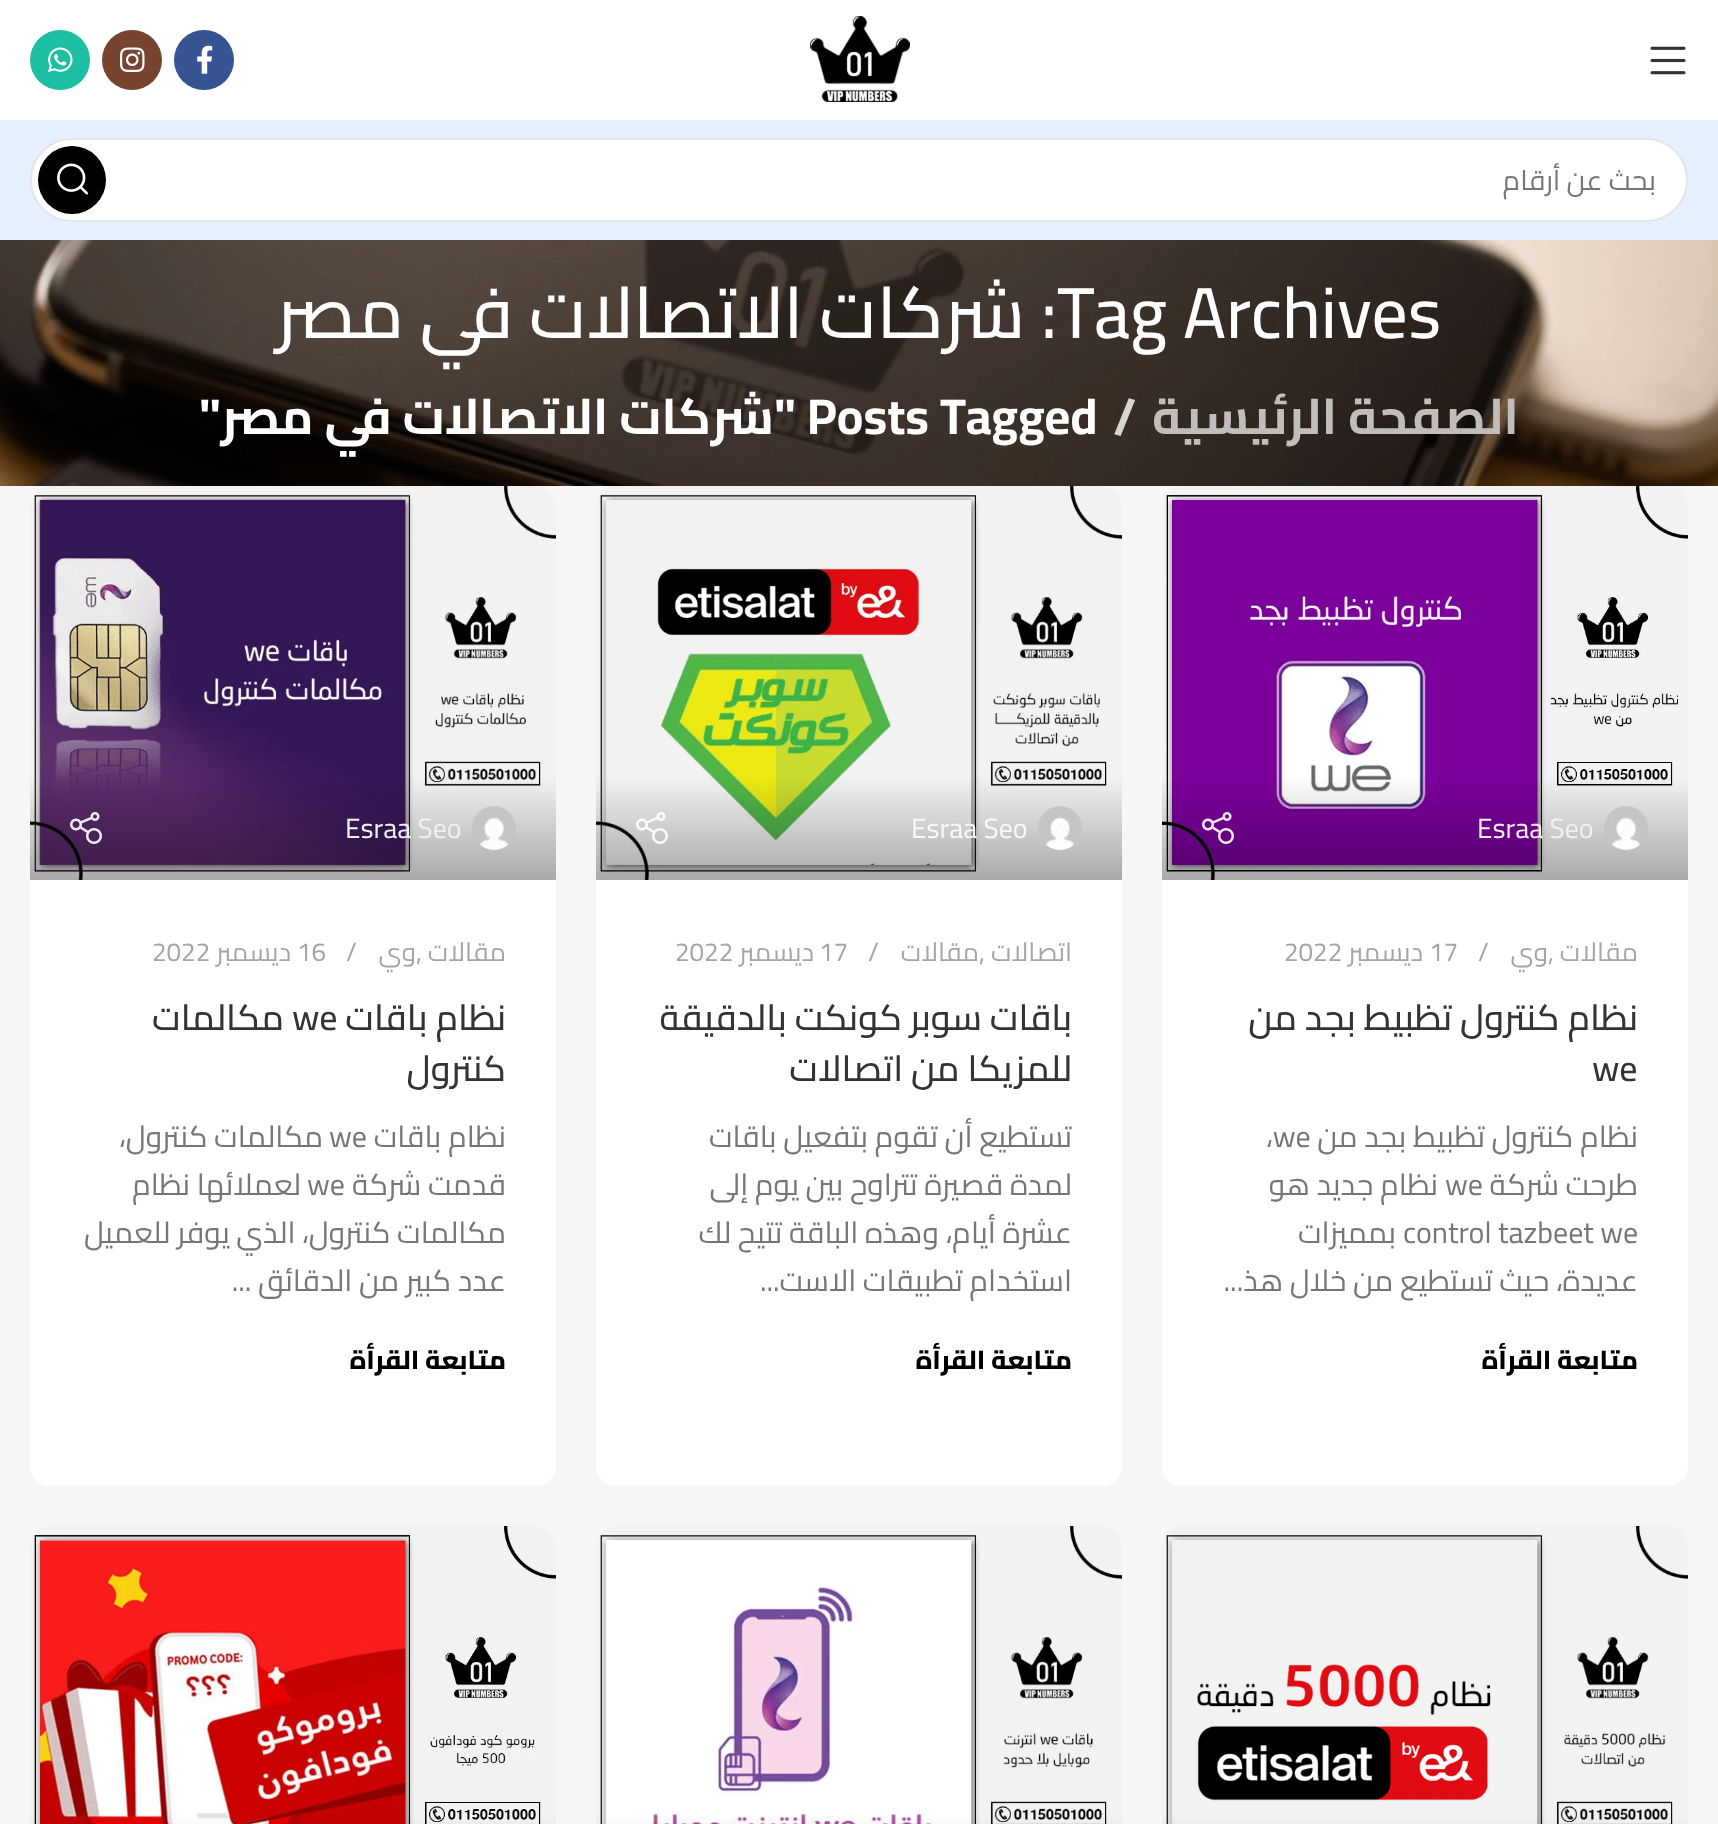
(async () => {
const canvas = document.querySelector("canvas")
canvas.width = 1718
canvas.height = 1824
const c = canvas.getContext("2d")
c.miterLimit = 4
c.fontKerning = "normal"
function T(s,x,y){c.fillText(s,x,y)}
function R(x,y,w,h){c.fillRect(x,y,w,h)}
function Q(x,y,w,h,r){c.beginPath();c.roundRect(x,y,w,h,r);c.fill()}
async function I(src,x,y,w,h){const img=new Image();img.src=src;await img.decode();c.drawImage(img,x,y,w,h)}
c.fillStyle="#fff"
R(0,0,1718,1824)
await I("1.png",1650,46,36,29)
await I("2.png",810,16,100,86)
c.fillStyle="#365493"
c.beginPath()
c.arc(204,60,30,0,7)
c.fill()
await I("3.png",197,45,16,29)
c.fillStyle="#774430"
c.beginPath()
c.arc(132,60,30,0,7)
c.fill()
await I("4.png",120,47,25,25)
c.fillStyle="#1ebea5"
c.beginPath()
c.arc(60,60,30,0,7)
c.fill()
await I("5.png",48,47,25,25)
c.fillStyle="#e6effd"
R(0,120,1718,120)
c.fillStyle="#fff"
Q(30,138,1658,84,42)
c.beginPath()
c.roundRect(31,139,1656,82,41)
c.strokeStyle="#0000001a"
c.lineWidth=2
c.stroke()
c.direction="rtl"
c.font="28px Cairo"
c.fillStyle="#767676"
T("بحث عن أرقام",1656,190)
c.fillStyle="#000"
c.beginPath()
c.arc(72,180,34,0,7)
c.fill()
await I("6.png",57,163,31,32)
c.fillStyle="#f6f6f6"
R(0,486,1718,1338)
await I("7.png",0,240,1718,246)
c.direction="ltr"
c.font="500 72px Cairo"
c.fillStyle="#fff"
T("Tag Archives",1057,338)
c.direction="rtl"
T(": شركات الاتصالات في مصر",1057,338)
c.font="bold 50px Cairo"
c.fillStyle="#c0bebc"
T("الصفحة الرئيسية",1519,434)
c.direction="ltr"
c.fillStyle="#d7d5d3"
T("/",1113,434)
c.fillStyle="#fff"
T("Posts Tagged",807,434)
c.direction="rtl"
T("\"شركات الاتصالات في مصر\"",796,434)
Q(1162,486,526,1000,20)
await I("8.png",1162,486,526,394)
await I("9.png",1604,806,44,44)
c.direction="ltr"
c.font="28px Cairo"
c.fillStyle="#f4eef5"
T("Esraa Seo",1477,838)
await I("10.png",1202,812,32,32)
c.direction="rtl"
c.font="26px Cairo"
c.fillStyle="#a5a5a5"
T("مقالات",1638,961)
c.direction="ltr"
T(",",1548,961)
c.direction="rtl"
T("وي",1548,961)
c.direction="ltr"
T("/",1478,961)
T("17",1429,961)
c.direction="rtl"
T("ديسمبر",1423,961)
c.direction="ltr"
T("2022",1284,961)
c.direction="rtl"
c.font="500 36px Cairo"
c.fillStyle="#333"
T("نظام كنترول تظبيط بجد من",1638,1030)
c.direction="ltr"
T("we",1592,1081)
c.direction="rtl"
c.font="30px Cairo"
c.fillStyle="#767676"
T("نظام كنترول تظبيط بجد من",1638,1147)
c.direction="ltr"
T("،we",1266,1147)
c.direction="rtl"
T("طرحت شركة",1638,1195)
c.direction="ltr"
T("we",1445,1195)
c.direction="rtl"
T("نظام جديد هو",1438,1195)
c.direction="ltr"
T("control tazbeet we",1403,1243)
c.direction="rtl"
T("بمميزات",1396,1243)
T("عديدة، حيث تستطيع من خلال هذ...",1638,1291)
c.font="800 26px Cairo"
c.fillStyle="#000"
T("متابعة القرأة",1638,1369)
c.fillStyle="#fff"
Q(596,486,526,1000,20)
await I("11.png",596,486,526,394)
await I("9.png",1038,806,44,44)
c.direction="ltr"
c.font="28px Cairo"
c.fillStyle="#f9f9f9"
T("Esraa Seo",911,838)
await I("12.png",636,812,32,32)
c.direction="rtl"
c.font="26px Cairo"
c.fillStyle="#a5a5a5"
T("اتصالات",1072,961)
c.direction="ltr"
T(",",979,961)
c.direction="rtl"
T("مقالات",979,961)
c.direction="ltr"
T("/",868,961)
T("17",819,961)
c.direction="rtl"
T("ديسمبر",814,961)
c.direction="ltr"
T("2022",675,961)
c.direction="rtl"
c.font="500 36px Cairo"
c.fillStyle="#333"
T("باقات سوبر كونكت بالدقيقة",1072,1030)
T("للمزيكا من اتصالات",1072,1081)
c.font="30px Cairo"
c.fillStyle="#767676"
T("تستطيع أن تقوم بتفعيل باقات",1072,1147)
T("لمدة قصيرة تتراوح بين يوم إلى",1072,1195)
T("عشرة أيام، وهذه الباقة تتيح لك",1072,1243)
T("استخدام تطبيقات الاست...",1072,1291)
c.font="800 26px Cairo"
c.fillStyle="#000"
T("متابعة القرأة",1072,1369)
c.fillStyle="#fff"
Q(30,486,526,1000,20)
await I("13.png",30,486,526,394)
await I("9.png",472,806,44,44)
c.direction="ltr"
c.font="28px Cairo"
c.fillStyle="#f4eef5"
T("Esraa Seo",345,838)
await I("14.png",70,812,32,32)
c.direction="rtl"
c.font="26px Cairo"
c.fillStyle="#a5a5a5"
T("مقالات",506,961)
c.direction="ltr"
T(",",416,961)
c.direction="rtl"
T("وي",416,961)
c.direction="ltr"
T("/",346,961)
T("16",297,961)
c.direction="rtl"
T("ديسمبر",291,961)
c.direction="ltr"
T("2022",152,961)
c.direction="rtl"
c.font="500 36px Cairo"
c.fillStyle="#333"
T("نظام باقات",506,1030)
c.direction="ltr"
T("we",292,1030)
c.direction="rtl"
T("مكالمات",284,1030)
T("كنترول",506,1081)
c.font="30px Cairo"
c.fillStyle="#767676"
T("نظام باقات",506,1147)
c.direction="ltr"
T("we",329,1147)
c.direction="rtl"
T("مكالمات كنترول،",323,1147)
T("قدمت شركة",506,1195)
c.direction="ltr"
T("we",307,1195)
c.direction="rtl"
T("لعملائها نظام",301,1195)
T("مكالمات كنترول، الذي يوفر للعميل",506,1243)
T("عدد كبير من الدقائق ...",506,1291)
c.font="800 26px Cairo"
c.fillStyle="#000"
T("متابعة القرأة",506,1369)
c.fillStyle="#fff"
Q(1162,1526,526,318,20)
await I("15.png",1162,1526,526,298)
Q(596,1526,526,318,20)
await I("16.png",596,1526,526,298)
Q(30,1526,526,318,20)
await I("17.png",30,1526,526,298)
})()
